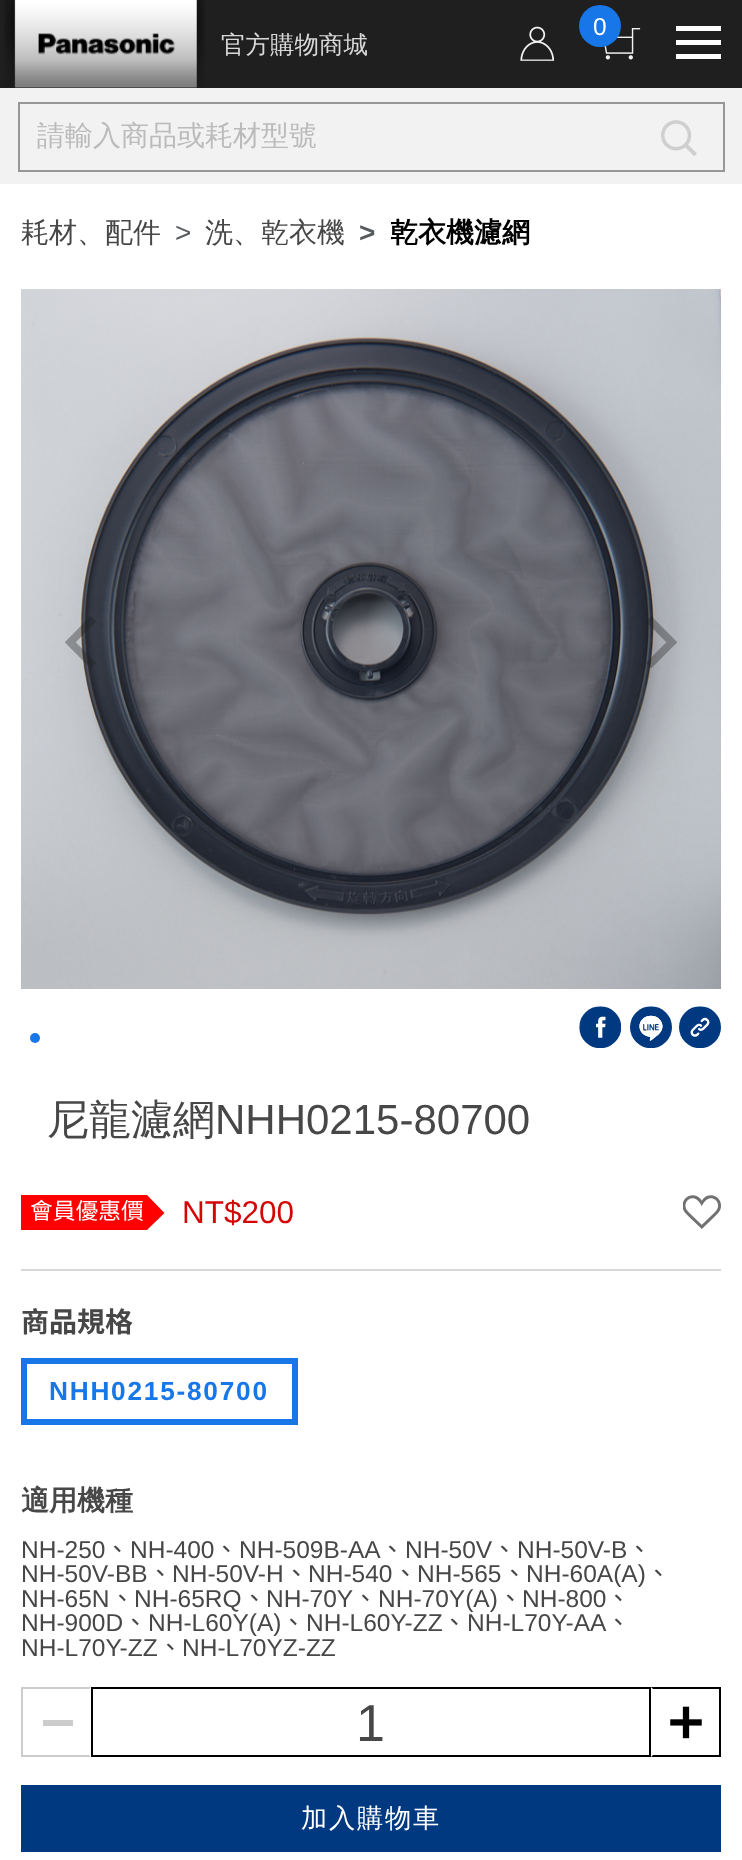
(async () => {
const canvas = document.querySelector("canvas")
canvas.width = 742
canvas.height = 1860
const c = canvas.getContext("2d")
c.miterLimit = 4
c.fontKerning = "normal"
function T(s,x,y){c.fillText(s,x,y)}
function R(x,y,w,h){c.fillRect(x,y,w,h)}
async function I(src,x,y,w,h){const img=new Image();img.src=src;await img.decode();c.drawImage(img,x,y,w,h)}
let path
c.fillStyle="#fff"
R(0,0,742,1860)
c.fillStyle="#1f1f1f"
R(0,0,742,88)
await I("1.png",520,26,35,35)
await I("2.png",604,28,37,32)
c.fillStyle="#1776e8"
c.beginPath()
c.arc(600,26,21,0,7)
c.fill()
c.font="24.5px Liberation Sans"
c.fillStyle="#fff"
T("0",593,35)
R(676,26,45,5)
R(676,40,45,5)
R(676,54,45,5)
await I("3.png",4,0,201,88)
c.font="500 24.5px WenQuanYi Zen Hei"
c.fillStyle="#d8d8d8"
T("官方購物商城",221,53)
c.fillStyle="#f2f2f2"
R(0,88,742,96)
c.strokeStyle="#979797"
c.lineWidth=2
c.strokeRect(19,103,705,68)
c.font="500 28px WenQuanYi Zen Hei"
c.fillStyle="#bbb"
T("請輸入商品或耗材型號",37,145)
await I("4.png",661,120,36,36)
c.fillStyle="#474747"
T("耗材、配件",21,242)
c.font="28px Liberation Sans"
c.fillStyle="#595c5f"
T(">",175,242)
c.font="500 28px WenQuanYi Zen Hei"
c.fillStyle="#474747"
T("洗、乾衣機",205,242)
c.font="bold 28px Liberation Sans"
c.fillStyle="#595c5f"
T(">",359,242)
c.font="bold 28px WenQuanYi Zen Hei"
c.fillStyle="#000"
T("乾衣機濾網",390,242)
await I("5.png",21,289,700,700)
await I("6.png",65,616,31,52)
await I("7.png",646,616,31,53)
c.fillStyle="#1776e8"
c.beginPath()
c.arc(35,1038,5,0,7)
c.fill()
await I("8.png",579,1006,42,42)
await I("9.png",630,1006,42,42)
await I("10.png",679,1006,42,42)
c.font="500 42px WenQuanYi Zen Hei"
c.fillStyle="#474747"
T("尼龍濾網",47,1134)
c.font="42px Liberation Sans"
T("NHH0215-80700",215,1134)
c.fillStyle="#f00"
R(21,1195,126,35)
c.font="22.75px Noto Sans TC"
c.fillStyle="#fff"
T("會員優惠價",30,1219)
c.fillStyle="#f00"
path = new Path2D("M147 1230v-35l17.5 18z")
c.fill(path)
c.font="31.5px Liberation Sans"
c.fillStyle="#d40606"
T("NT$200",182,1223)
await I("11.png",683,1195,38,34)
c.fillStyle="#d8d8d8"
R(21,1269,700,2)
c.font="bold 28px Noto Sans TC"
c.fillStyle="#474747"
T("商品規格",21,1332)
c.strokeStyle="#1776e8"
c.lineWidth=4
c.strokeRect(25,1362,269,59)
c.lineWidth=2
c.strokeRect(22,1359,275,65)
c.letterSpacing="1.75px"
c.font="bold 26.25px Liberation Sans"
c.fillStyle="#1776e8"
T("NHH0215-80700",49,1400)
c.letterSpacing="0px"
c.font="bold 28px WenQuanYi Zen Hei"
c.fillStyle="#474747"
T("適用機種",21,1510)
c.font="24.5px Liberation Sans"
T("NH-250",21,1558)
c.font="24.5px Noto Sans TC"
T("、",105,1558)
c.font="24.5px Liberation Sans"
T("NH-400",130,1558)
c.font="24.5px Noto Sans TC"
T("、",214,1558)
c.font="24.5px Liberation Sans"
T("NH-509B-AA",239,1558)
c.font="24.5px Noto Sans TC"
T("、",380,1558)
c.font="24.5px Liberation Sans"
T("NH-50V",405,1558)
c.font="24.5px Noto Sans TC"
T("、",492,1558)
c.font="24.5px Liberation Sans"
T("NH-50V-B",517,1558)
c.font="24.5px Noto Sans TC"
T("、",627,1558)
c.font="24.5px Liberation Sans"
T("NH-50V-BB",21,1582)
c.font="24.5px Noto Sans TC"
T("、",148,1582)
c.font="24.5px Liberation Sans"
T("NH-50V-H",172,1582)
c.font="24.5px Noto Sans TC"
T("、",284,1582)
c.font="24.5px Liberation Sans"
T("NH-540",308,1582)
c.font="24.5px Noto Sans TC"
T("、",393,1582)
c.font="24.5px Liberation Sans"
T("NH-565",417,1582)
c.font="24.5px Noto Sans TC"
T("、",502,1582)
c.font="24.5px Liberation Sans"
T("NH-60A(A)",526,1582)
c.font="24.5px Noto Sans TC"
T("、",646,1582)
c.font="24.5px Liberation Sans"
T("NH-65N",21,1607)
c.font="24.5px Noto Sans TC"
T("、",110,1607)
c.font="24.5px Liberation Sans"
T("NH-65RQ",134,1607)
c.font="24.5px Noto Sans TC"
T("、",242,1607)
c.font="24.5px Liberation Sans"
T("NH-70Y",266,1607)
c.font="24.5px Noto Sans TC"
T("、",353,1607)
c.font="24.5px Liberation Sans"
T("NH-70Y(A)",378,1607)
c.font="24.5px Noto Sans TC"
T("、",498,1607)
c.font="24.5px Liberation Sans"
T("NH-800",522,1607)
c.font="24.5px Noto Sans TC"
T("、",606,1607)
c.font="24.5px Liberation Sans"
T("NH-900D",21,1631)
c.font="24.5px Noto Sans TC"
T("、",123,1631)
c.font="24.5px Liberation Sans"
T("NH-L60Y(A)",148,1631)
c.font="24.5px Noto Sans TC"
T("、",281,1631)
c.font="24.5px Liberation Sans"
T("NH-L60Y-ZZ",306,1631)
c.font="24.5px Noto Sans TC"
T("、",442,1631)
c.font="24.5px Liberation Sans"
T("NH-L70Y-AA",467,1631)
c.font="24.5px Noto Sans TC"
T("、",606,1631)
c.font="24.5px Liberation Sans"
T("NH-L70Y-ZZ",21,1656)
c.font="24.5px Noto Sans TC"
T("、",158,1656)
c.font="24.5px Liberation Sans"
T("NH-L70YZ-ZZ",182,1656)
c.fillStyle="#ccc"
path = new Path2D("M21 1687h70l-2 2h-66z")
c.fill(path)
path = new Path2D("M91 1757h-70l2-2h66z")
c.fill(path)
R(21,1687,2,70)
R(43,1720,30,6)
c.strokeStyle="#000"
c.strokeRect(92,1688,558,68)
c.font="52px Liberation Sans"
c.fillStyle="#474747"
T("1",356,1741)
c.fillStyle="#000"
path = new Path2D("M651 1687h70l-2 2h-66z")
c.fill(path)
R(719,1687,2,70)
path = new Path2D("M721 1757h-70l2-2h66z")
c.fill(path)
await I("12.png",670,1706,32,33)
c.fillStyle="#013981"
R(21,1785,700,67)
c.letterSpacing="1.75px"
c.font="500 26.25px WenQuanYi Zen Hei"
c.fillStyle="#fff"
T("加入購物車",301,1827)
})()
